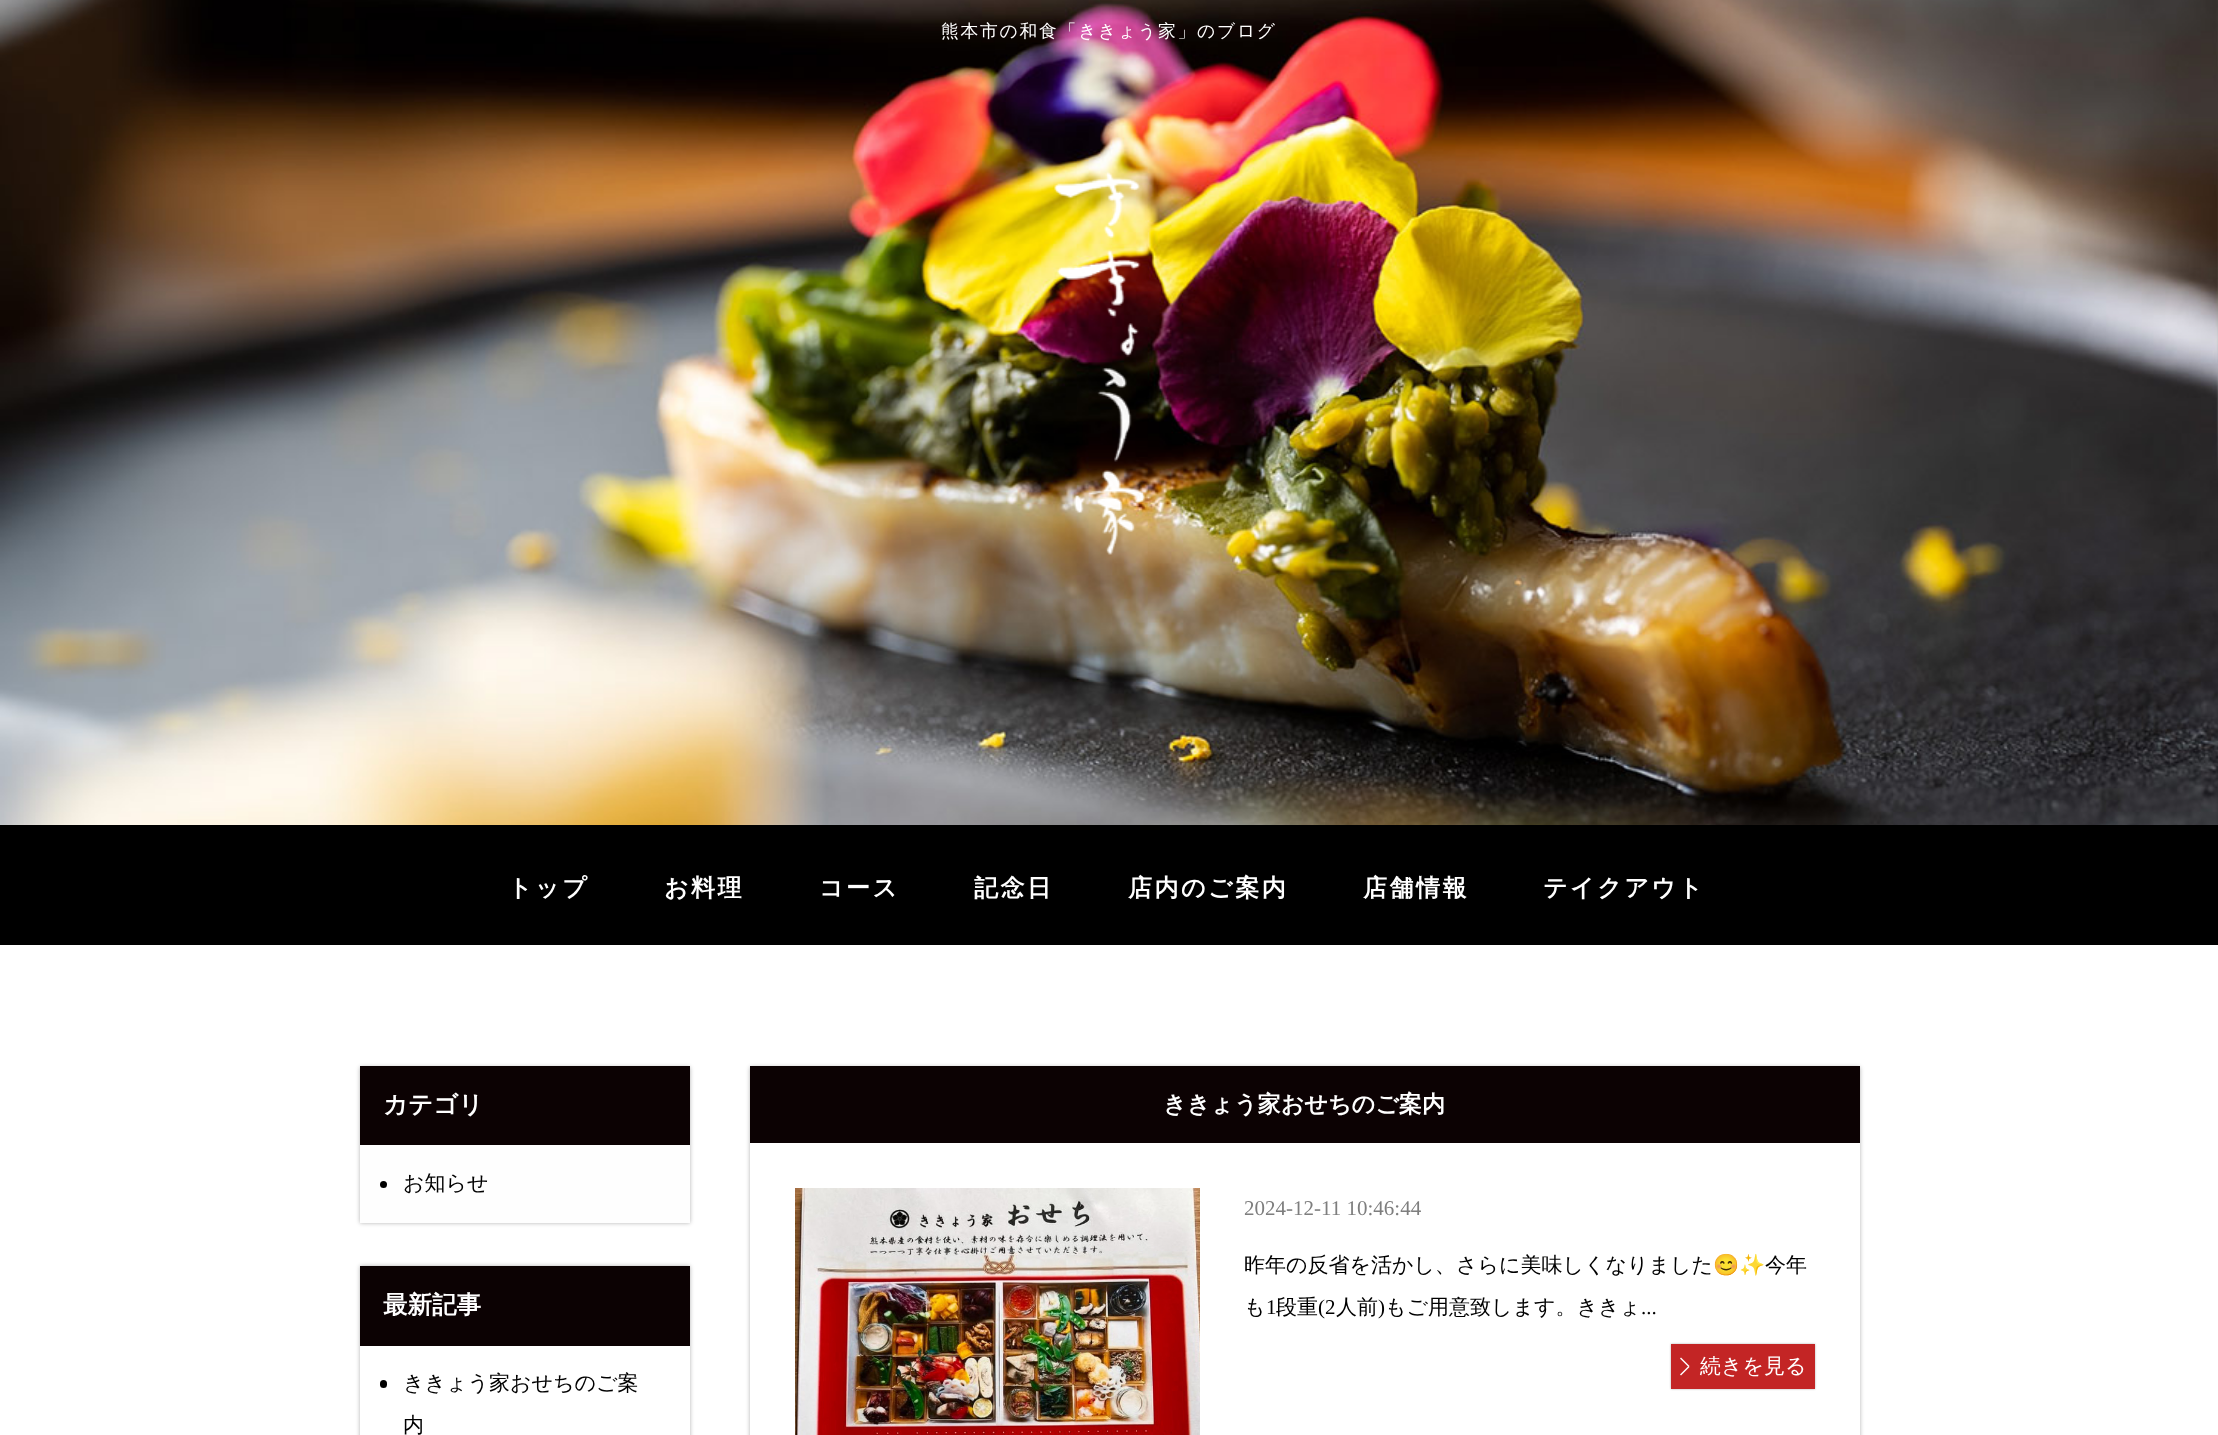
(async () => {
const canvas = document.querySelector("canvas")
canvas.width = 2218
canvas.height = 1435
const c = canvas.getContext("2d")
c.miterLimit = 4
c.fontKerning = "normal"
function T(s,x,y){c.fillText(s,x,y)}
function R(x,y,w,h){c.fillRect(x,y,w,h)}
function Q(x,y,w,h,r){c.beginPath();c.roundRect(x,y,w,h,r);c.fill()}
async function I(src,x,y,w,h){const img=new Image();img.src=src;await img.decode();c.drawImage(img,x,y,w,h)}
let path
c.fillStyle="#fff"
R(0,0,2218,1435)
await I("1.png",0,0,2218,825)
c.letterSpacing="1.75px"
c.font="500 17.8px WenQuanYi Zen Hei"
T("熊本市の和食「ききょう家」のブログ",941,37)
await I("2.png",1054,171,91,384)
c.fillStyle="#000"
R(0,825,2218,120)
c.letterSpacing="2.5px"
c.font="bold 24px WenQuanYi Zen Hei"
c.fillStyle="#fff"
T("トップ",508,896)
T("お料理",664,896)
T("コース",819,896)
T("記念日",974,896)
T("店内のご案内",1128,896)
T("店舗情報",1363,896)
T("テイクアウト",1543,896)
c.fillStyle="#0000004d"
c.filter="blur(2px)"
c.beginPath()
c.rect(360,1067,330,156)
c.fill()
c.filter="none"
c.fillStyle="#fefefe"
R(360,1145,330,78)
c.fillStyle="#0c0203"
R(360,1066,330,79)
c.letterSpacing="0px"
c.font="bold 24.5px WenQuanYi Zen Hei"
c.fillStyle="#fff"
T("カテゴリ",383,1113)
c.fillStyle="#000"
c.beginPath()
c.arc(383.5,1184.5,3.5,0,7)
c.fill()
c.font="500 21px WenQuanYi Zen Hei"
T("お知らせ",403,1190)
c.save()
path = new Path2D("M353 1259h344v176h-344zm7 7h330v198h-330z")
c.clip(path,"evenodd")
c.fillStyle="#0000004d"
c.filter="blur(2px)"
c.beginPath()
c.rect(360,1266,330,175)
c.fill()
c.filter="none"
c.restore()
c.fillStyle="#0c0203"
R(360,1266,330,80)
c.font="bold 24.5px WenQuanYi Zen Hei"
c.fillStyle="#fff"
T("最新記事",383,1313)
c.fillStyle="#000"
Q(380,1380,7,8,3.5)
c.font="500 21px WenQuanYi Zen Hei"
T("ききょう家おせちのご案",403,1390)
T("内",403,1432)
c.save()
path = new Path2D("M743 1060h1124v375h-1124zm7 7h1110v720h-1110z")
c.clip(path,"evenodd")
c.fillStyle="#0000004d"
c.filter="blur(2px)"
c.beginPath()
c.rect(750,1067,1110,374)
c.fill()
c.filter="none"
c.restore()
c.fillStyle="#0c0203"
R(750,1066,1110,77)
c.font="bold 23.1px WenQuanYi Zen Hei"
c.fillStyle="#fff"
T("ききょう家おせちのご案内",1163,1112)
await I("3.png",795,1188,405,247)
c.font="21px Liberation Serif"
c.fillStyle="#7e7e7e"
T("2024-12-11 10:46:44",1244,1215)
c.font="500 21px WenQuanYi Zen Hei"
c.fillStyle="#000"
T("昨年の反省を活かし、さらに美味しくなりました",1244,1272)
c.font="21px Noto Color Emoji"
T("😊✨",1713,1272)
c.font="500 21px WenQuanYi Zen Hei"
T("今年",1765,1272)
T("も",1244,1314)
c.font="21px Liberation Serif"
T("1",1266,1314)
c.font="500 21px WenQuanYi Zen Hei"
T("段重",1276,1314)
c.font="21px Liberation Serif"
T("(2",1318,1314)
c.font="500 21px WenQuanYi Zen Hei"
T("人前",1336,1314)
c.font="21px Liberation Serif"
T(")",1378,1314)
c.font="500 21px WenQuanYi Zen Hei"
T("もご用意致します。ききょ",1385,1314)
c.font="21px Liberation Serif"
T("...",1641,1314)
c.fillStyle="#0000004d"
c.filter="blur(1px)"
c.beginPath()
c.rect(1671,1344,144,45)
c.fill()
c.filter="none"
c.fillStyle="#c32525"
R(1671,1344,144,45)
c.fillStyle="#fff"
path = new Path2D("M1681 1357.5l8.5 8.5l-1 1l-8.5-8.5z")
c.fill(path)
c.font="500 21px WenQuanYi Zen Hei"
T("続きを見る",1700,1373)
path = new Path2D("M1680 1374.5l8.5-8.5l1 1l-8.5 8.5z")
c.fill(path)
})()
